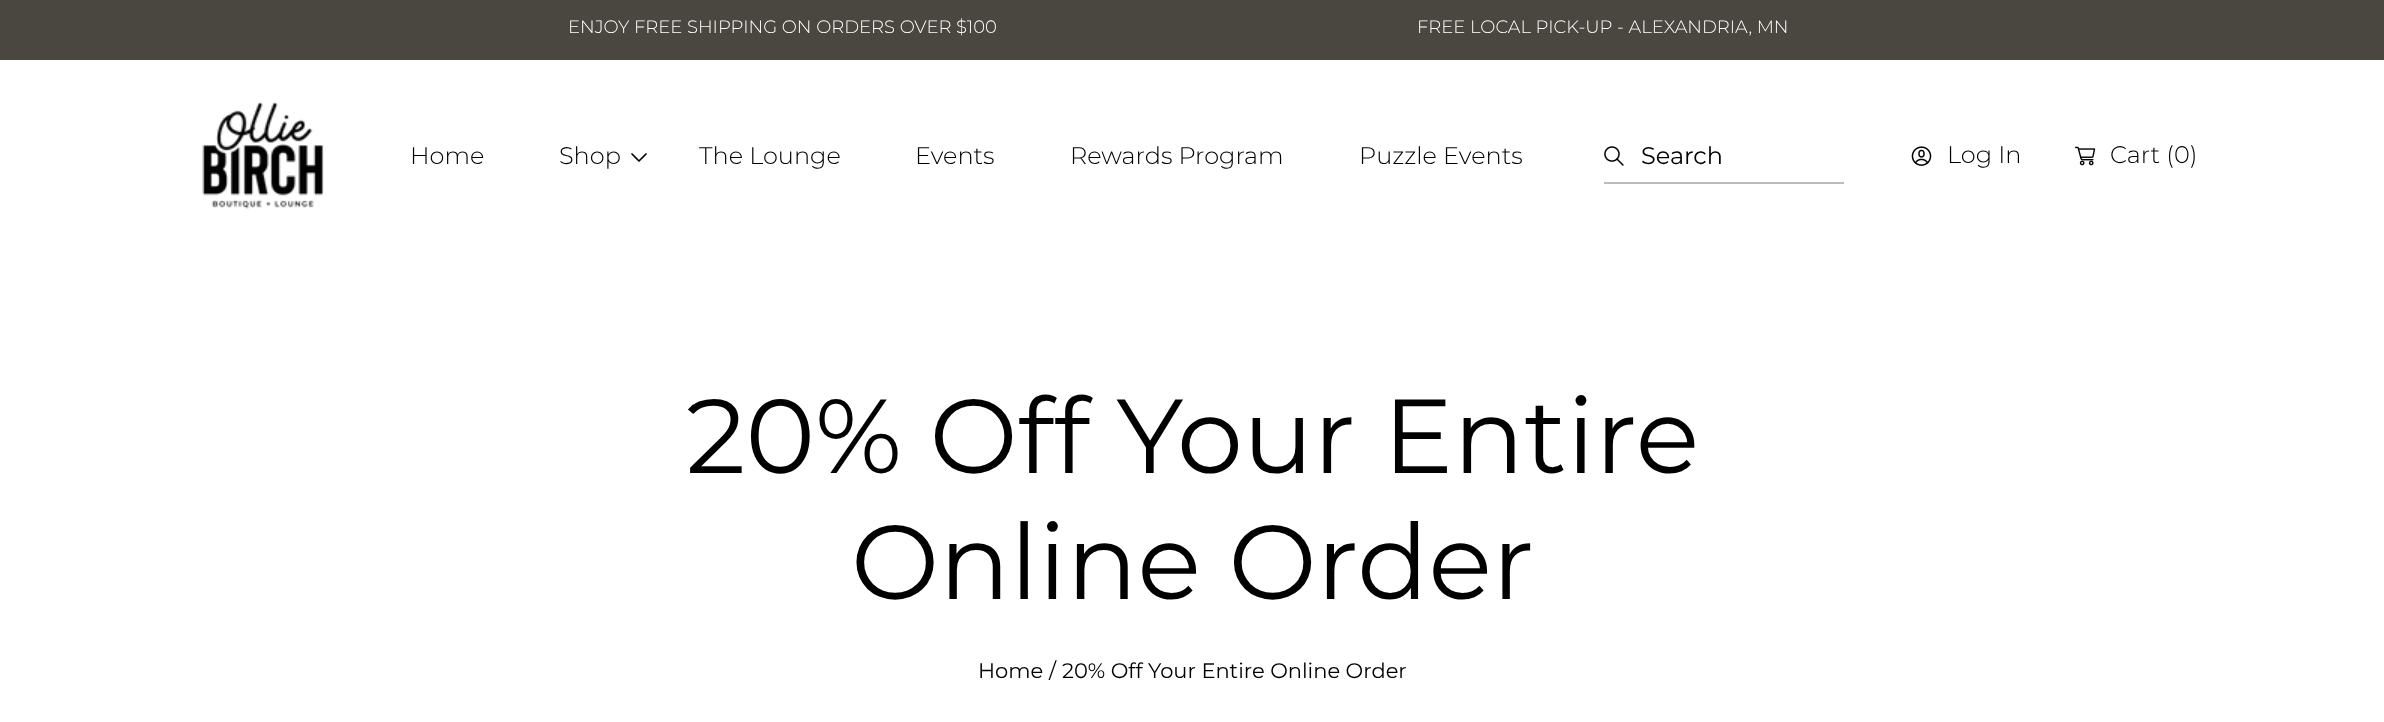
(async () => {
const canvas = document.querySelector("canvas")
canvas.width = 2384
canvas.height = 722
const c = canvas.getContext("2d")
c.miterLimit = 4
c.fontKerning = "normal"
function T(s,x,y){c.fillText(s,x,y)}
function R(x,y,w,h){c.fillRect(x,y,w,h)}
async function I(src,x,y,w,h){const img=new Image();img.src=src;await img.decode();c.drawImage(img,x,y,w,h)}
let path
c.fillStyle="#fff"
R(0,0,2384,722)
c.fillStyle="#4a4640"
R(0,0,2384,60)
c.font="300 18px Montserrat"
c.fillStyle="#fff"
T("ENJOY FREE SHIPPING ON ORDERS OVER $100",568,33)
T("FREE LOCAL PICK-UP - ALEXANDRIA, MN",1417,33)
await I("1.png",202,102,122,107)
c.font="300 24px Montserrat"
c.fillStyle="#000"
T("Home",410,164)
T("Shop",559,164)
path = new Path2D("M632 154l7 7l7-7")
c.strokeStyle="#000"
c.lineWidth=1.7
c.lineCap="round"
c.lineJoin="round"
c.stroke(path)
T("The Lounge",699,164)
T("Events",915,164)
T("Rewards Program",1070,164)
T("Puzzle Events",1359,164)
await I("2.png",1604,146,20,20)
c.font="24px Montserrat"
T("Search",1641,164)
c.fillStyle="#b9bcc1"
R(1604,182,240,2)
await I("3.png",1911,146,21,20)
c.font="300 24px Montserrat"
c.fillStyle="#000"
T("Log In",1947,163)
await I("4.png",2075,146,21,20)
T("Cart (0)",2110,163)
c.font="105px Montserrat"
T("20% Off Your Entire",686,473)
T("Online Order",851,599)
c.font="21px Montserrat"
T("Home",978,678)
T("/",1049,678)
T("20% Off Your Entire Online Order",1062,678)
})()
